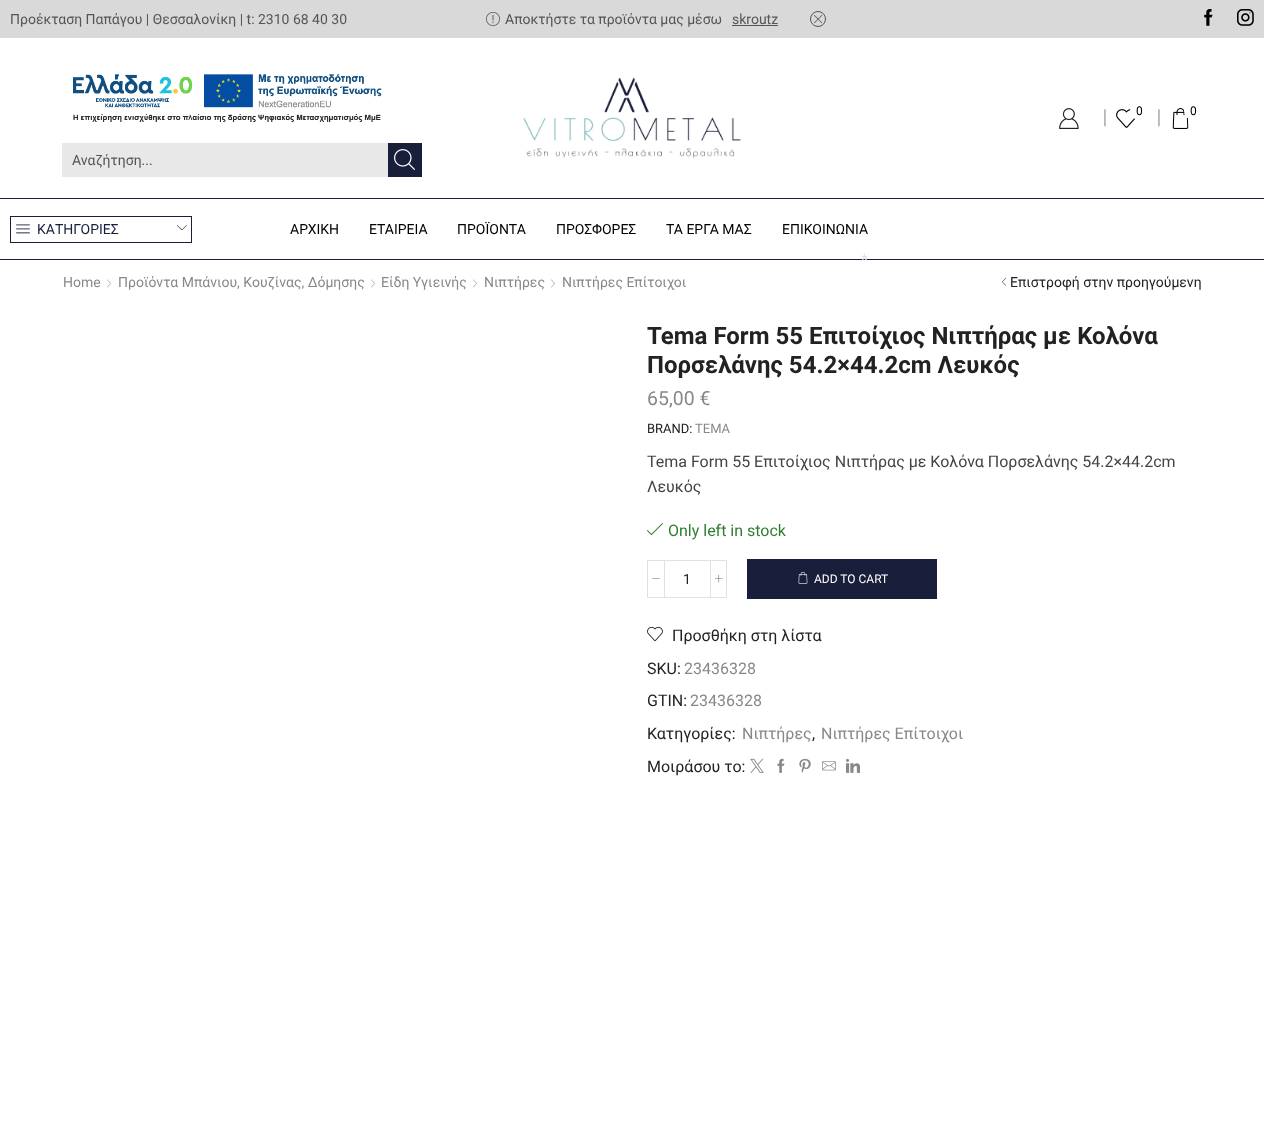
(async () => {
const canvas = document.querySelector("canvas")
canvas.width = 1264
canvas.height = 1136
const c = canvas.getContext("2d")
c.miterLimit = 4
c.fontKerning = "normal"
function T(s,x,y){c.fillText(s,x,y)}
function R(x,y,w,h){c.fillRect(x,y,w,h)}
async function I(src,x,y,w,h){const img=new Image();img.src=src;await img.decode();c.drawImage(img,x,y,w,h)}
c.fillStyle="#fff"
R(0,0,1264,1136)
c.fillStyle="#d9d9d9"
R(0,0,1264,38)
c.font="14px Roboto"
c.fillStyle="#555"
T("Προέκταση Παπάγου | Θεσσαλονίκη | t: 2310 68 40 30",10,24)
await I("1.png",486,12,14,14)
T("Αποκτήστε τα προϊόντα μας μέσω",505,24)
T("skroutz",732,24)
R(732,25,46,1)
c.beginPath()
c.arc(818,19,7.5,0,7)
c.strokeStyle="#555"
c.stroke()
await I("2.png",814,15,9,9)
await I("3.png",1204,9,9,17)
await I("4.png",1237,9,17,17)
await I("5.png",73,74,309,48)
c.fillStyle="#e8e8e8"
R(62,143,326,34)
c.fillStyle="#555"
T("Αναζήτηση...",72,165)
c.fillStyle="#191e3b"
R(388,143,34,34)
await I("6.png",394,149,21,21)
await I("7.png",523,77,218,81)
c.font="14px Liberation Serif"
c.fillStyle="#808080"
T("│",1100,122)
await I("8.png",1116,109,19,19)
c.fillStyle="#fff"
c.beginPath()
c.arc(1139,111,9,0,7)
c.fill()
c.font="12px Roboto"
c.fillStyle="#000"
T("0",1136,115)
c.font="14px Liberation Serif"
c.fillStyle="#808080"
T("│",1154,122)
await I("9.png",1172,108,17,21)
c.fillStyle="#fff"
c.beginPath()
c.arc(1193,111,9,0,7)
c.fill()
c.font="12px Roboto"
c.fillStyle="#000"
T("0",1190,115)
await I("10.png",1059,108,20,21)
c.fillStyle="#191e3b"
R(0,259,1264,1)
c.font="16px Roboto"
c.fillStyle="#e2e3e7"
T("*",861,265)
c.fillStyle="#191e3b"
R(0,198,1264,1)
c.strokeStyle="#191e3b"
c.strokeRect(10.5,216.5,181,26)
await I("11.png",16,224,14,10)
c.font="14px Roboto"
T("ΚΑΤΗΓΟΡΙΕΣ",37,234)
await I("12.png",177,225,10,6)
c.fillStyle="#000"
T("ΑΡΧΙΚΗ",290,234)
T("ΕΤΑΙΡΕΙΑ",369,234)
T("ΠΡΟΪΟΝΤΑ",457,234)
T("ΠΡΟΣΦΟΡΕΣ",556,234)
T("ΤΑ ΕΡΓΑ ΜΑΣ",666,234)
T("ΕΠΙΚΟΙΝΩΝΙΑ",782,234)
c.fillStyle="#888"
T("Home",63,287)
await I("13.png",107,279,4,9)
T("Προϊόντα Μπάνιου, Κουζίνας, Δόμησης",118,287)
await I("13.png",371,279,4,9)
T("Είδη Υγιεινής",381,287)
await I("13.png",473,279,4,9)
T("Νιπτήρες",484,287)
await I("13.png",551,279,4,9)
T("Νιπτήρες Επίτοιχοι",562,287)
await I("14.png",1002,277,4,9)
c.fillStyle="#222"
T("Επιστροφή στην προηγούμενη",1010,287)
c.font="bold 24px Roboto"
T("Tema Form 55 Επιτοίχιος Νιπτήρας με Κολόνα",647,344)
T("Πορσελάνης 54.2×44.2cm Λευκός",647,373)
c.font="19.5px Roboto"
c.fillStyle="#888"
T("65,00 €",647,405)
c.font="13px Roboto"
c.fillStyle="#222"
T("BRAND:",647,433)
c.fillStyle="#888"
T("TEMA",695,433)
c.font="16px Roboto"
c.fillStyle="#444"
T("Tema Form 55 Επιτοίχιος Νιπτήρας με Κολόνα Πορσελάνης 54.2×44.2cm",647,467)
T("Λευκός",647,492)
await I("15.png",647,523,16,12)
c.fillStyle="#2e7d32"
T("Only left in stock",668,536)
c.strokeStyle="#e1e1e1"
c.strokeRect(647.5,560.5,17,37)
await I("16.png",652,578,8,1)
c.fillStyle="#e1e1e1"
R(665,560,45,1)
R(665,597,45,1)
c.font="14px Roboto"
c.fillStyle="#222"
T("1",683,584)
c.strokeRect(710.5,560.5,16,37)
await I("17.png",715,574,8,9)
c.fillStyle="#191e3b"
R(747,559,190,40)
await I("18.png",798,571,10,13)
c.font="12px Roboto"
c.fillStyle="#fff"
T("ADD TO CART",814,583)
await I("19.png",647,626,16,16)
c.font="16px Roboto"
c.fillStyle="#222"
T("Προσθήκη στη λίστα",672,641)
T("SKU:",647,674)
c.fillStyle="#888"
T("23436328",684,674)
c.fillStyle="#222"
T("GTIN:",647,706)
c.fillStyle="#888"
T("23436328",690,706)
c.fillStyle="#222"
T("Κατηγορίες:",647,739)
c.fillStyle="#888"
T("Νιπτήρες",742,739)
c.fillStyle="#222"
T(",",812,739)
c.fillStyle="#888"
T("Νιπτήρες Επίτοιχοι",821,739)
c.fillStyle="#222"
T("Μοιράσου το:",647,772)
await I("20.png",750,758,14,15)
await I("21.png",777,758,8,15)
await I("22.png",799,758,12,15)
await I("23.png",822,761,14,10)
await I("24.png",846,758,14,15)
})()
